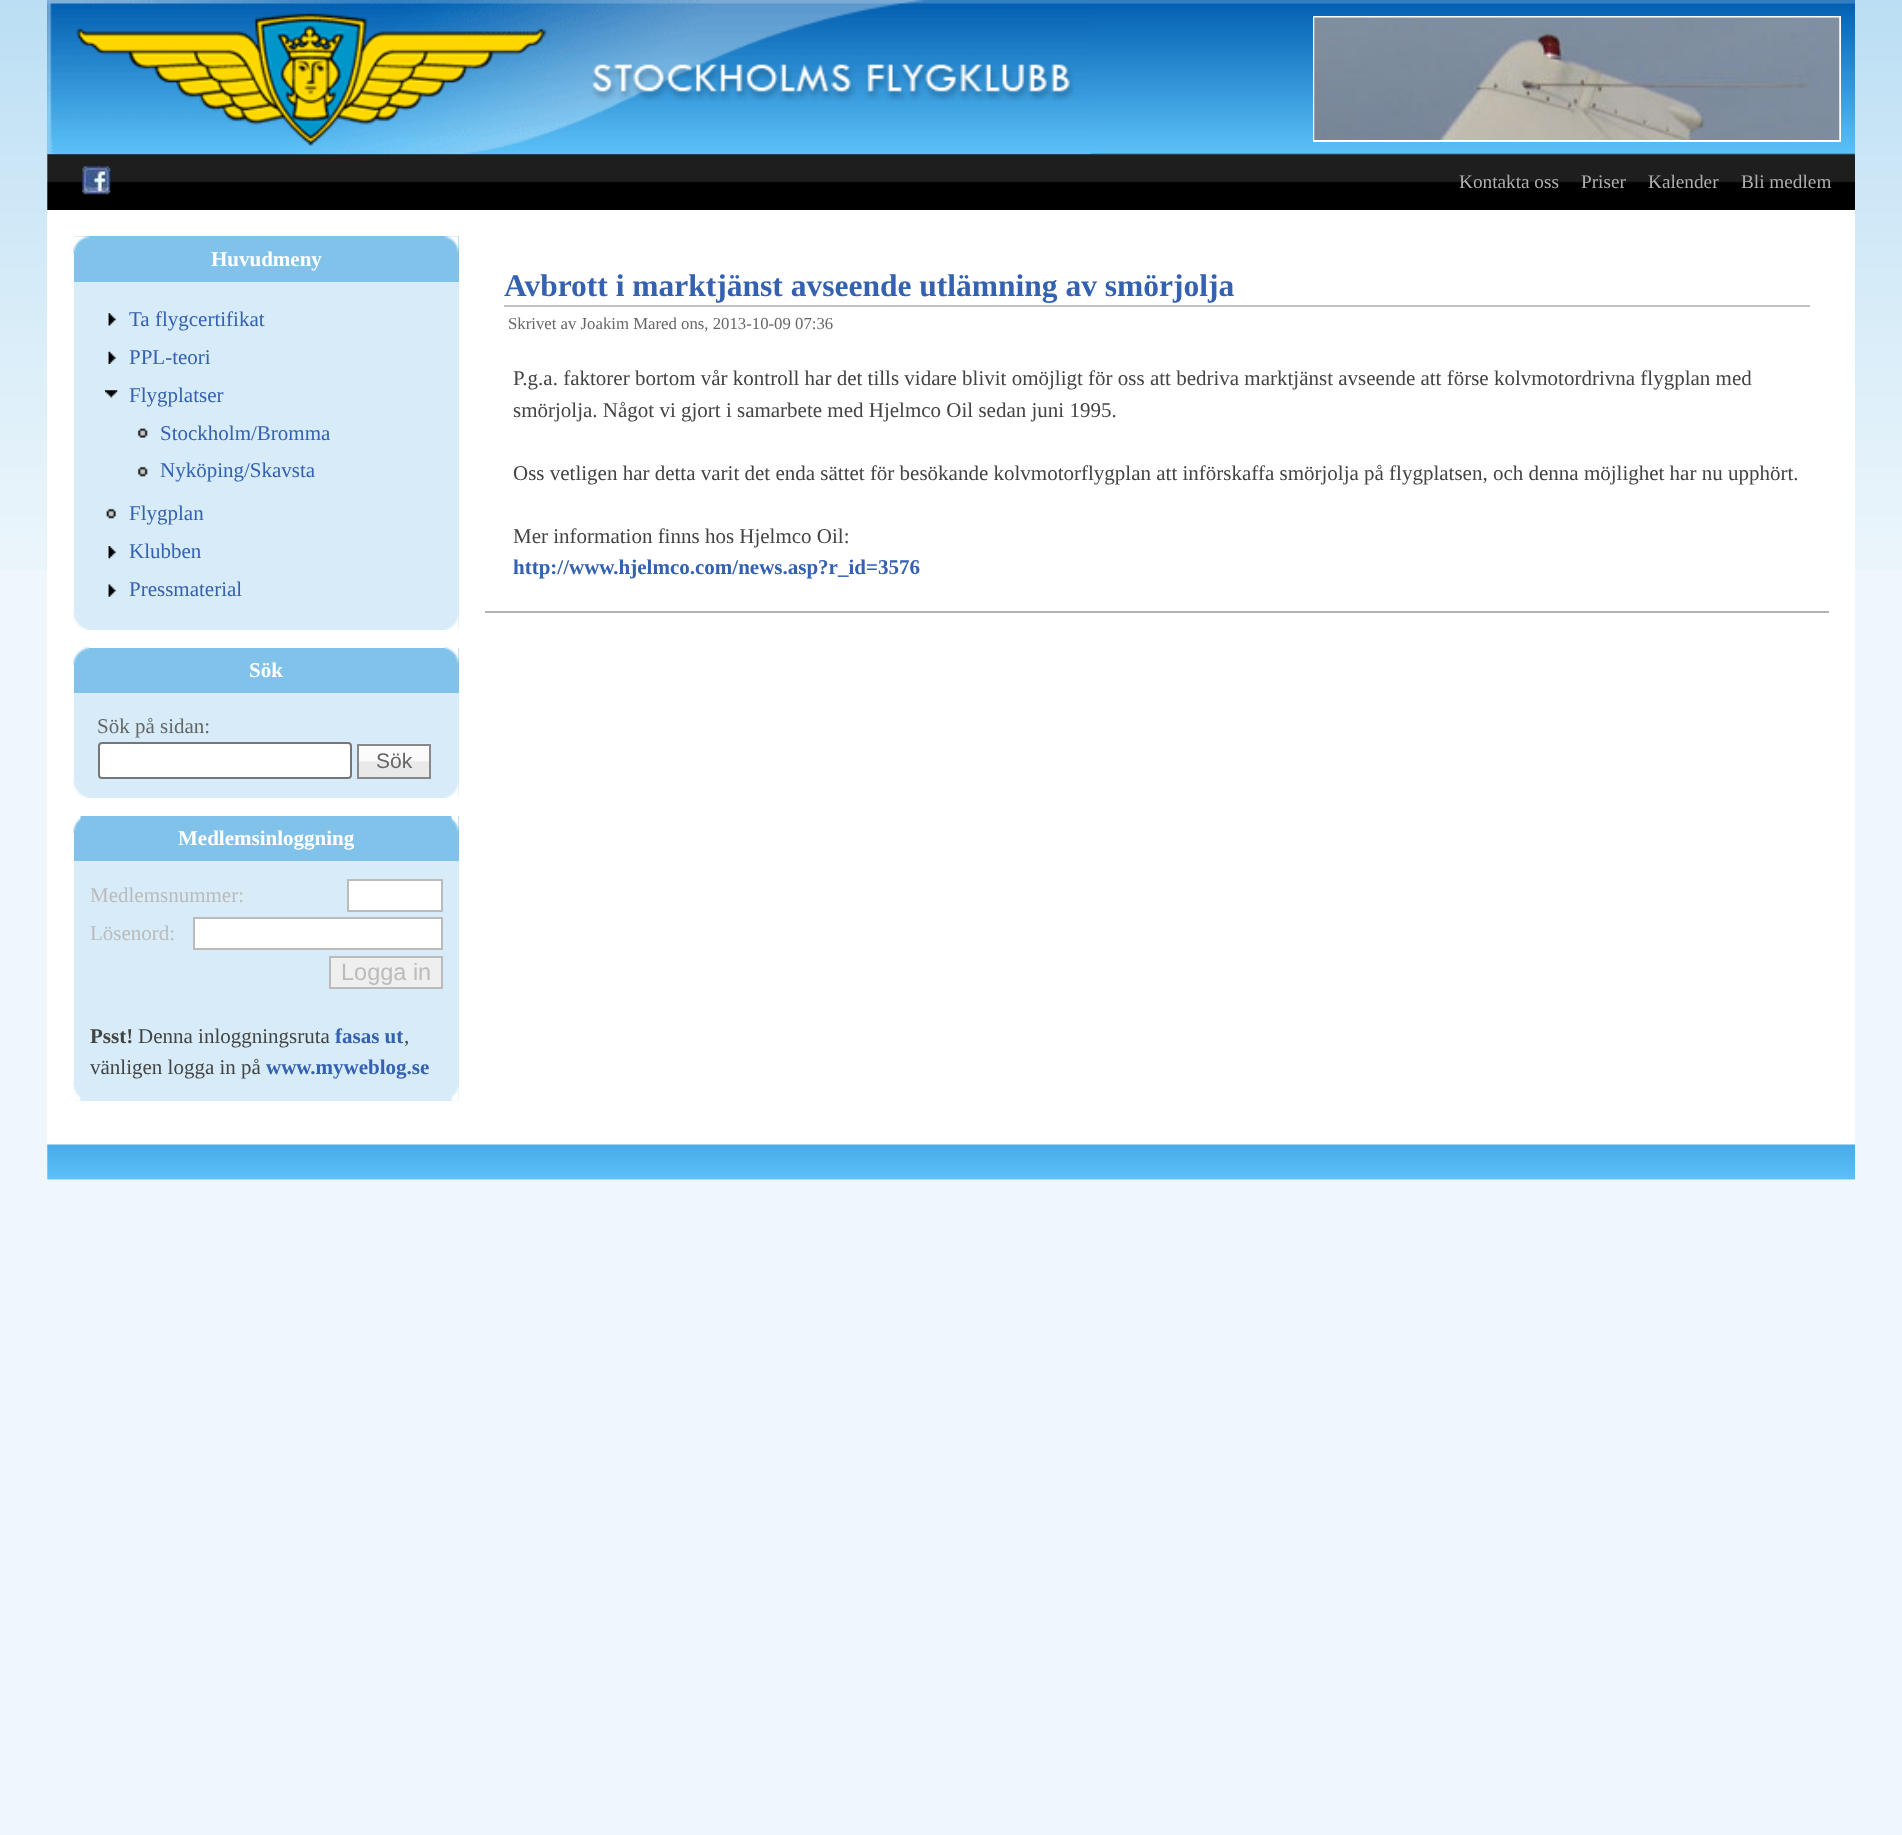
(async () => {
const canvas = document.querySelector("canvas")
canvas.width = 1902
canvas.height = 1835
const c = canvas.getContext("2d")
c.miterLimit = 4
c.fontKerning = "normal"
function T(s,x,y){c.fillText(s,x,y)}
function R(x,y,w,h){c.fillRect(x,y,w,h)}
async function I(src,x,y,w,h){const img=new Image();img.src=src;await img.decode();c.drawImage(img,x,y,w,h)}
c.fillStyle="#eff7fc"
R(0,0,1902,1835)
await I("1.png",0,0,1902,570)
c.fillStyle="#fff"
R(47,0,1808,1180)
await I("2.png",47,0,1808,210)
await I("3.png",47,0,1044,154)
c.strokeStyle="#fff"
c.lineWidth=2
c.strokeRect(1314,17,526,124)
await I("4.png",1314,17,526,123)
await I("5.png",82,166,29,29)
c.font="19.25px Liberation Serif"
c.fillStyle="#aeaeae"
T("Kontakta oss",1459,188)
T("Priser",1581,188)
T("Kalender",1648,188)
T("Bli medlem",1741,188)
c.fillStyle="#81c2ea"
R(74,236,385,46)
await I("6.png",73,236,16,18)
await I("7.png",444,236,15,17)
c.font="bold 21px Liberation Serif"
c.fillStyle="#fff"
T("Huvudmeny",211,266)
c.fillStyle="#d7ecf8"
R(74,282,15,331)
await I("8.png",73,612,16,18)
R(89,282,370,348)
await I("9.png",108,313,8,13)
c.font="21px Liberation Serif"
c.fillStyle="#3561b1"
T("Ta flygcertifikat",129,326)
await I("10.png",108,351,8,13)
T("PPL-teori",129,364)
await I("11.png",105,390,13,8)
T("Flygplatser",129,402)
await I("12.png",137,428,11,10)
T("Stockholm/Bromma",160,440)
await I("13.png",137,466,11,11)
T("Nyköping/Skavsta",160,477)
await I("14.png",106,508,10,11)
T("Flygplan",129,520)
await I("15.png",108,546,8,13)
T("Klubben",129,558)
await I("16.png",108,584,8,13)
T("Pressmaterial",129,596)
await I("17.png",445,615,14,15)
c.fillStyle="#81c2ea"
R(74,665,15,28)
await I("18.png",73,647,17,18)
R(89,648,370,45)
await I("19.png",444,647,15,18)
c.font="bold 21px Liberation Serif"
c.fillStyle="#fff"
T("Sök",249,677)
c.fillStyle="#d7ecf8"
R(74,693,15,88)
await I("8.png",73,780,16,18)
R(89,693,370,105)
c.font="21px Liberation Serif"
c.fillStyle="#666"
T("Sök på sidan:",97,733)
c.fillStyle="#fff"
c.beginPath()
c.roundRect(99,743,252,35,3)
c.fill()
c.strokeStyle="#767676"
c.stroke()
await I("20.png",357,743,74,34)
c.strokeStyle="#888"
c.strokeRect(358,745,72,33)
c.font="21px Liberation Sans"
c.fillStyle="#666"
T("Sök",376,768)
await I("21.png",445,783,14,15)
c.fillStyle="#81c2ea"
R(74,816,385,45)
await I("22.png",73,816,8,17)
await I("23.png",451,816,8,17)
c.font="bold 21px Liberation Serif"
c.fillStyle="#fff"
T("Medlemsinloggning",178,845)
c.fillStyle="#d7ecf8"
R(74,861,385,240)
await I("24.png",73,1083,8,18)
c.font="21px Liberation Serif"
c.fillStyle="#bbb"
T("Medlemsnummer:",90,902)
c.fillStyle="#fff"
c.beginPath()
c.rect(348,880,94,31)
c.fill()
c.strokeStyle="#bbb"
c.stroke()
c.fillStyle="#bbb"
T("Lösenord:",90,940)
c.fillStyle="#fff"
c.beginPath()
c.rect(194,918,248,31)
c.fill()
c.stroke()
c.fillStyle="#efefef"
c.beginPath()
c.rect(330,957,112,31)
c.fill()
c.stroke()
c.font="23.5px Liberation Sans"
c.fillStyle="#bbb"
T("Logga in",341,980)
c.font="bold 21px Liberation Serif"
c.fillStyle="#444"
T("Psst!",90,1043)
c.font="21px Liberation Serif"
T("Denna inloggningsruta",138,1043)
c.font="bold 21px Liberation Serif"
c.fillStyle="#3561b1"
T("fasas ut",335,1043)
c.font="21px Liberation Serif"
c.fillStyle="#444"
T(",",404,1043)
T("vänligen logga in på",90,1074)
c.font="bold 21px Liberation Serif"
c.fillStyle="#3561b1"
T("www.myweblog.se",266,1074)
await I("25.png",451,1085,8,16)
c.fillStyle="#b1b1b1"
R(485,611,1344,2)
c.fillStyle="#c2c2c2"
R(504,305,1306,2)
c.font="bold 31.5px Liberation Serif"
c.fillStyle="#3561b1"
T("Avbrott i marktjänst avseende utlämning av smörjolja",504,296)
c.font="16.75px Liberation Serif"
c.fillStyle="#666"
T("Skrivet av Joakim Mared ons, 2013-10-09 07:36",508,329)
c.font="21px Liberation Serif"
c.fillStyle="#444"
T("P.g.a. faktorer bortom vår kontroll har det tills vidare blivit omöjligt för oss att bedriva marktjänst avseende att förse kolvmotordrivna flygplan med",513,385)
T("smörjolja. Något vi gjort i samarbete med Hjelmco Oil sedan juni 1995.",513,417)
T("Oss vetligen har detta varit det enda sättet för besökande kolvmotorflygplan att införskaffa smörjolja på flygplatsen, och denna möjlighet har nu upphört.",513,480)
T("Mer information finns hos Hjelmco Oil:",513,543)
c.font="bold 21px Liberation Serif"
c.fillStyle="#3561b1"
T("http://www.hjelmco.com/news.asp?r_id=3576",513,574)
await I("26.png",47,1144,1808,36)
})()
